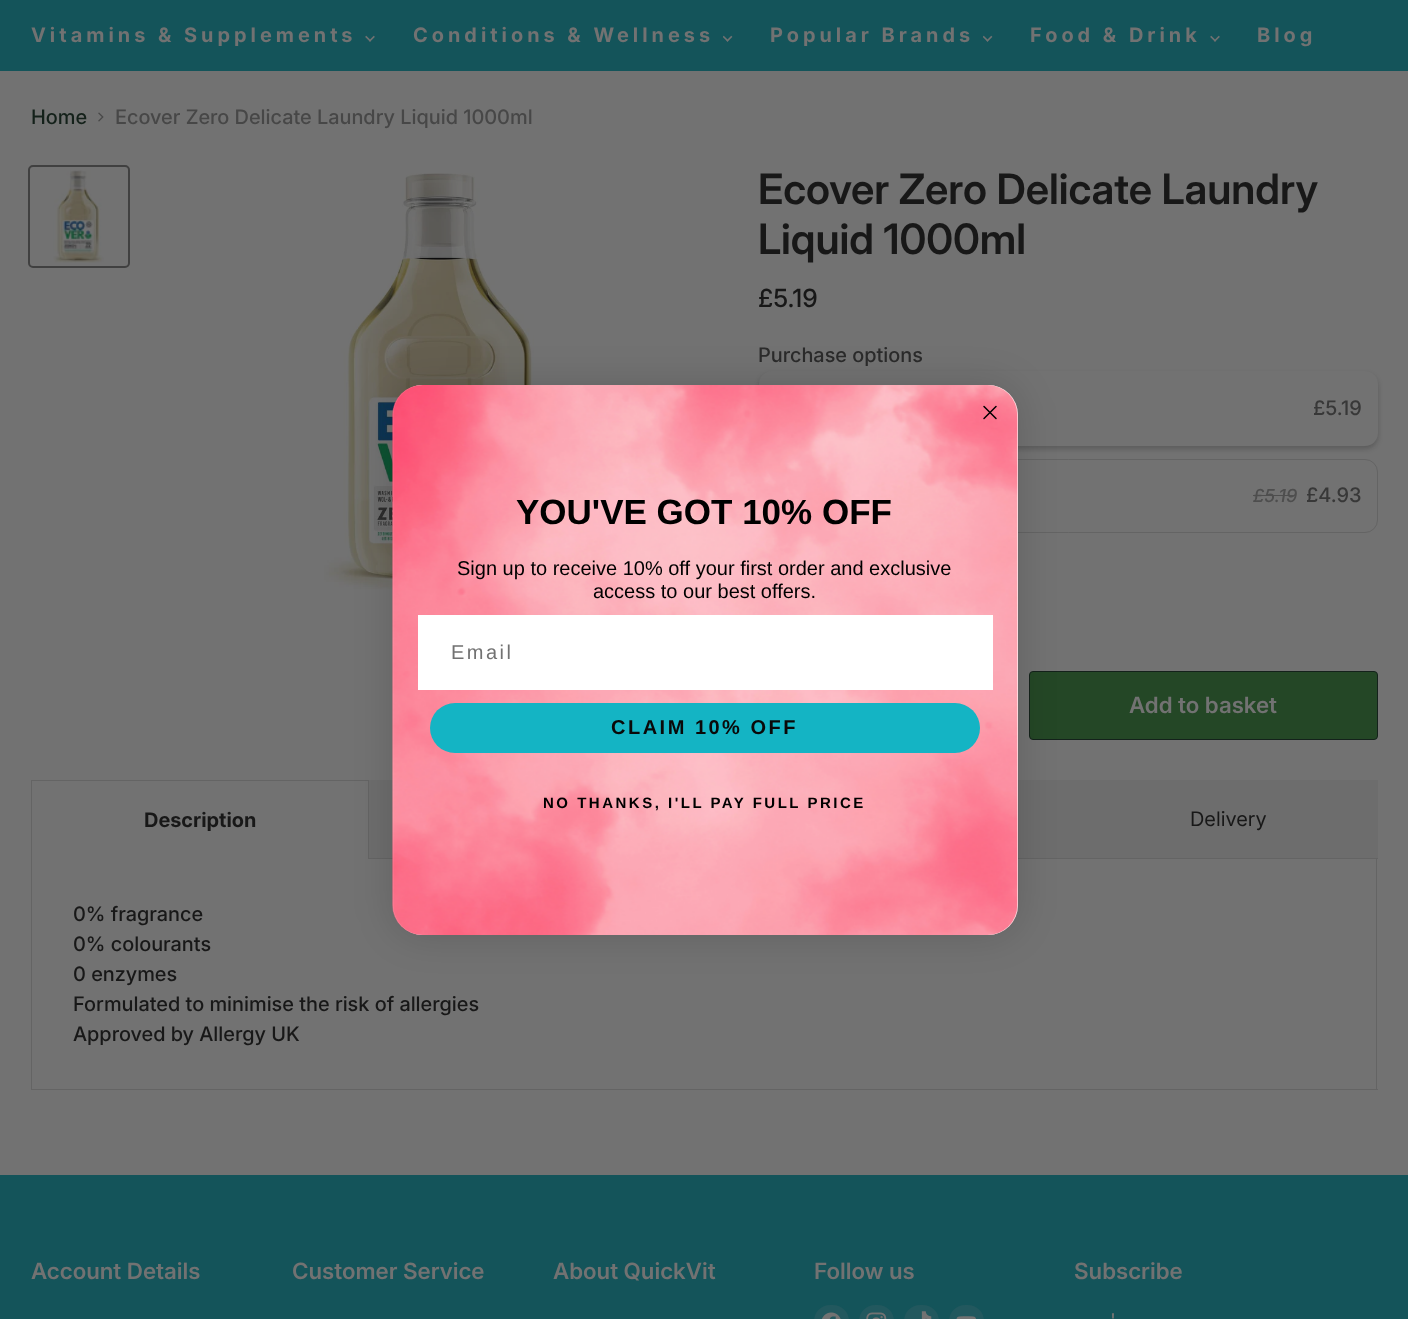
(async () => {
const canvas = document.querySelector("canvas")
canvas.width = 1408
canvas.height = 1319
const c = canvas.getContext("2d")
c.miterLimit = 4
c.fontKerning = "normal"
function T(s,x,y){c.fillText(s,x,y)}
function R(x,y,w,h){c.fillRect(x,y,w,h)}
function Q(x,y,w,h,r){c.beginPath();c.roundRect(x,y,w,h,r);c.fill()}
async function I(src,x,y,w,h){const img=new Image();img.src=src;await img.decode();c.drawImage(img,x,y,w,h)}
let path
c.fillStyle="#727272"
R(0,0,1408,1319)
c.fillStyle="#14545a"
R(0,0,1408,71)
c.letterSpacing="4px"
c.font="bold 20px Inter"
c.fillStyle="#727272"
T("Vitamins & Supplements",31,42)
await I("1.png",365,35,10,7)
T("Conditions & Wellness",413,42)
await I("2.png",723,35,10,7)
T("Popular Brands",770,42)
await I("2.png",983,35,10,7)
T("Food & Drink",1030,42)
await I("1.png",1210,35,10,7)
T("Blog",1257,42)
c.letterSpacing="0px"
c.font="500 20px Inter"
c.fillStyle="#14211a"
T("Home",31,124)
await I("3.png",98,112,6,10)
c.fillStyle="#474747"
T("Ecover Zero Delicate Laundry Liquid 1000ml",115,124)
c.beginPath()
c.roundRect(29,166,100,101,4)
c.strokeStyle="#404040"
c.lineWidth=2
c.stroke()
await I("4.png",53,170,51,93)
await I("5.png",324,173,234,417)
c.font="600 42px Inter"
c.fillStyle="#181818"
T("Ecover Zero Delicate Laundry",758,204)
T("Liquid 1000ml",758,254)
c.font="500 25px 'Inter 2'"
T("£5.19",758,307)
c.font="500 20px Inter"
c.fillStyle="#2b2b2b"
T("Purchase options",758,362)
c.fillStyle="#0c0c0c38"
c.filter="blur(2.5px)"
c.beginPath()
c.roundRect(759,374,619,75,13)
c.fill()
c.filter="none"
c.fillStyle="#727272"
Q(759,371,619,75,13)
c.fillStyle="#383838"
T("£5.19",1313,415)
c.beginPath()
c.roundRect(759.5,459.5,618,73,12.5)
c.strokeStyle="#646464"
c.lineWidth=1
c.stroke()
c.font="italic 500 18px Inter"
c.fillStyle="#4e4e4e"
T("£5.19",1253,502)
R(1253,495,43,1)
c.font="500 20px Inter"
c.fillStyle="#383838"
T("£4.93",1306,502)
c.fillStyle="#244726"
c.beginPath()
c.roundRect(1029.5,671.5,348,68,3.5)
c.fill()
c.strokeStyle="#14221b"
c.stroke()
c.font="600 22.5px 'Inter 2'"
c.fillStyle="#727272"
T("Add to basket",1129,713)
c.fillStyle="#646464"
R(31,780,338,1)
R(368,780,1,79)
R(31,780,1,79)
c.font="bold 20px Inter"
c.fillStyle="#181818"
T("Description",144,827)
c.fillStyle="#6d6d6d"
R(369,780,24,78)
c.fillStyle="#646464"
R(369,858,24,1)
c.fillStyle="#6d6d6d"
R(1018,780,360,78)
c.fillStyle="#646464"
R(1018,858,360,1)
c.font="20px Inter"
c.fillStyle="#181818"
T("Delivery",1190,826)
c.fillStyle="#646464"
R(1376,859,1,231)
R(31,1089,1347,1)
R(31,859,1,231)
c.font="500 20px Inter"
c.fillStyle="#181818"
T("0% fragrance",73,921)
T("0% colourants",73,951)
T("0 enzymes",73,981)
T("Formulated to minimise the risk of allergies",73,1011)
T("Approved by Allergy UK",73,1041)
c.fillStyle="#00000026"
c.filter="blur(19px)"
c.beginPath()
c.roundRect(393,385,625,550,30)
c.fill()
c.filter="none"
c.fillStyle="#fff"
Q(393,385,625,550,30)
await I("6.png",392,385,626,550)
path = new Path2D("M984 406.5l12 12m-12 0l12-12z")
c.strokeStyle="#000"
c.lineWidth=1.5
c.lineCap="round"
c.lineJoin="round"
c.stroke(path)
c.font="bold 35px Liberation Sans"
c.fillStyle="#000"
T("YOU'VE GOT 10% OFF",516,524)
c.font="20px Liberation Sans"
T("Sign up to receive 10% off your first order and exclusive",457,575)
T("access to our best offers.",593,598)
c.fillStyle="#fff"
R(418,615,575,75)
c.letterSpacing="2.5px"
c.fillStyle="#727272"
T("Email",451,659)
c.fillStyle="#14b4c4"
Q(430,703,550,50,25)
c.font="bold 20px Liberation Sans"
c.fillStyle="#0a0909"
T("CLAIM 10% OFF",611,734)
c.font="bold 15px Liberation Sans"
c.fillStyle="#000"
T("NO THANKS, I'LL PAY FULL PRICE",543,808)
c.fillStyle="#14545a"
R(0,1175,1408,144)
c.letterSpacing="0px"
c.font="600 22.5px 'Inter 2'"
c.fillStyle="#727272"
T("Account Details",31,1279)
T("Customer Service",292,1279)
T("About QuickVit",553,1279)
T("Follow us",814,1279)
c.fillStyle="#22585e"
Q(814,1305,35,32,17.5)
await I("7.png",822,1312,19,7)
Q(859,1305,35,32,17.5)
await I("8.png",866,1312,21,7)
Q(904,1305,35,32,17.5)
await I("9.png",921,1311,11,8)
Q(949,1305,35,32,17.5)
await I("10.png",956,1316,20,3)
c.fillStyle="#727272"
T("Subscribe",1074,1279)
c.font="500 19px 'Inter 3'"
T("'",1110,1327)
})()
